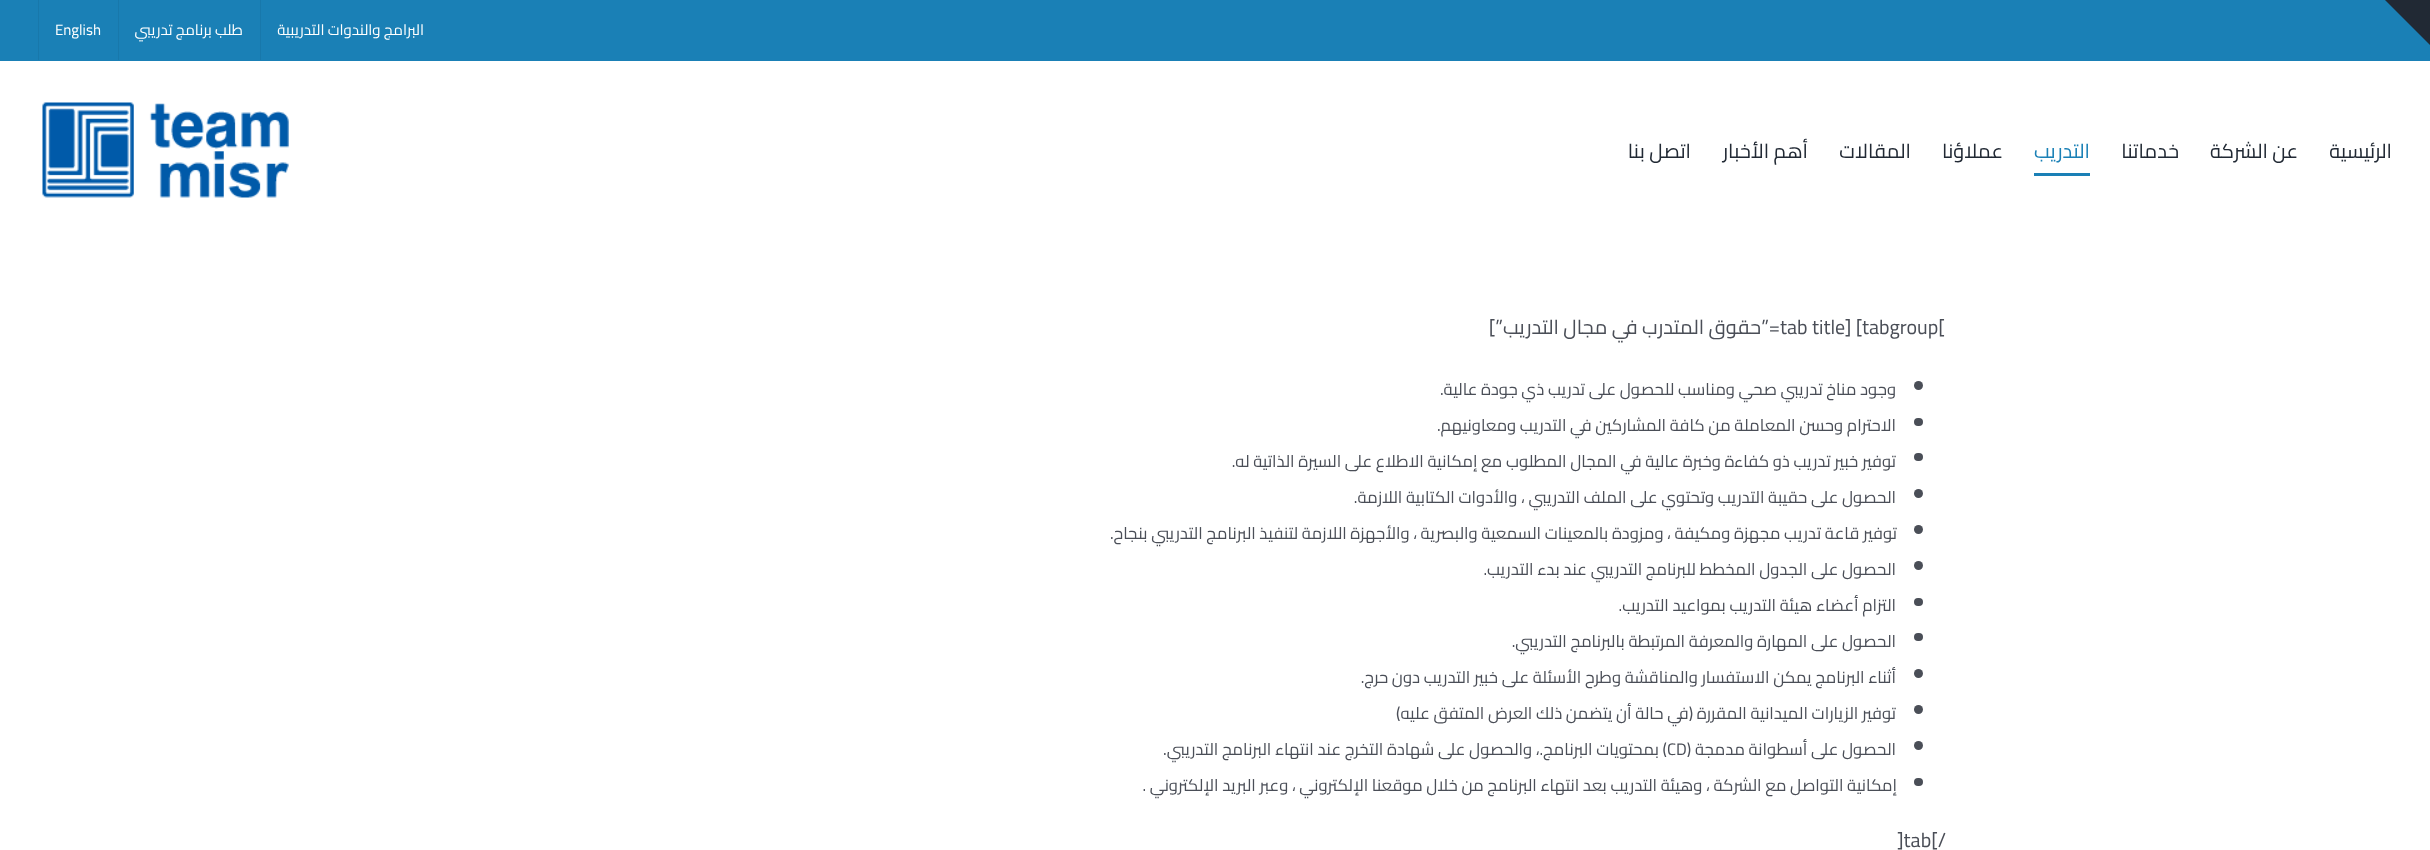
(async () => {
const canvas = document.querySelector("canvas")
canvas.width = 2430
canvas.height = 850
const c = canvas.getContext("2d")
c.miterLimit = 4
c.fontKerning = "normal"
function T(s,x,y){c.fillText(s,x,y)}
function R(x,y,w,h){c.fillRect(x,y,w,h)}
function Q(x,y,w,h,r){c.beginPath();c.roundRect(x,y,w,h,r);c.fill()}
async function I(src,x,y,w,h){const img=new Image();img.src=src;await img.decode();c.drawImage(img,x,y,w,h)}
let path
c.fillStyle="#fff"
R(0,0,2430,850)
c.fillStyle="#1a80b6"
R(0,0,2430,61)
c.fillStyle="#212934"
path = new Path2D("M2385 0h45v45z")
c.fill(path)
c.fillStyle="#1878ab"
R(260,0,1,60)
c.direction="rtl"
c.font="15px Cairo"
c.fillStyle="#fff"
T("البرامج والندوات التدريبية",424,35)
c.fillStyle="#1878ab"
R(118,0,1,60)
c.fillStyle="#fff"
T("طلب برنامج تدريبي",243,35)
c.fillStyle="#1878ab"
R(38,0,1,60)
c.direction="ltr"
c.fillStyle="#fff"
T("English",55,35)
c.direction="rtl"
c.font="20px Cairo"
c.fillStyle="#212934"
T("الرئيسية",2392,158)
T("عن الشركة",2298,158)
T("خدماتنا",2179,158)
c.fillStyle="#1a80b6"
T("التدريب",2090,158)
R(2034,173,56,3)
c.fillStyle="#212934"
T("عملاؤنا",2003,158)
T("المقالات",1911,158)
T("أهم الأخبار",1808,158)
T("اتصل بنا",1691,158)
await I("1.png",42,102,247,96)
c.direction="ltr"
c.fillStyle="#4a4e57"
T("tab title] [tabgroup[",1780,334)
c.direction="rtl"
T("=”حقوق المتدرب في مجال التدريب”]",1780,334)
c.beginPath()
c.arc(1918.5,385.5,4.5,0,7)
c.fill()
c.font="16.65px Cairo"
T("وجود مناخ تدريبي صحي ومناسب للحصول على تدريب ذي جودة عالية.",1896,395)
Q(1914,418,9,8,4)
T("الاحترام وحسن المعاملة من كافة المشاركين في التدريب ومعاونيهم.",1896,431)
Q(1914,453,9,8,4)
T("توفير خبير تدريب ذو كفاءة وخبرة عالية في المجال المطلوب مع إمكانية الاطلاع على السيرة الذاتية له.",1896,467)
c.beginPath()
c.arc(1918.5,493.5,4.5,0,7)
c.fill()
T("الحصول على حقيبة التدريب وتحتوي على الملف التدريبي ، والأدوات الكتابية اللازمة.",1896,503)
c.beginPath()
c.arc(1918.5,529.5,4.5,0,7)
c.fill()
T("توفير قاعة تدريب مجهزة ومكيفة ، ومزودة بالمعينات السمعية والبصرية ، والأجهزة اللازمة لتنفيذ البرنامج التدريبي بنجاح.",1897,539)
c.beginPath()
c.arc(1918.5,565.5,4.5,0,7)
c.fill()
T("الحصول على الجدول المخطط للبرنامج التدريبي عند بدء التدريب.",1896,575)
Q(1914,598,9,8,4)
T("التزام أعضاء هيئة التدريب بمواعيد التدريب.",1896,611)
Q(1914,633,9,8,4)
T("الحصول على المهارة والمعرفة المرتبطة بالبرنامج التدريبي.",1896,647)
c.beginPath()
c.arc(1918.5,673.5,4.5,0,7)
c.fill()
T("أثناء البرنامج يمكن الاستفسار والمناقشة وطرح الأسئلة على خبير التدريب دون حرج.",1896,683)
c.beginPath()
c.arc(1918.5,709.5,4.5,0,7)
c.fill()
T("توفير الزيارات الميدانية المقررة (في حالة أن يتضمن ذلك العرض المتفق عليه)",1896,719)
c.beginPath()
c.arc(1918.5,745.5,4.5,0,7)
c.fill()
T("الحصول على أسطوانة مدمجة (",1896,755)
c.direction="ltr"
T("CD",1667,755)
c.direction="rtl"
T(") بمحتويات البرنامج.، والحصول على شهادة التخرج عند انتهاء البرنامج التدريبي.",1667,755)
Q(1914,778,9,8,4)
T("إمكانية التواصل مع الشركة ، وهيئة التدريب بعد انتهاء البرنامج من خلال موقعنا الإلكتروني ، وعبر البريد الإلكتروني .",1897,791)
c.direction="ltr"
c.font="20px Cairo"
T("]tab[/",1897,847)
})()
